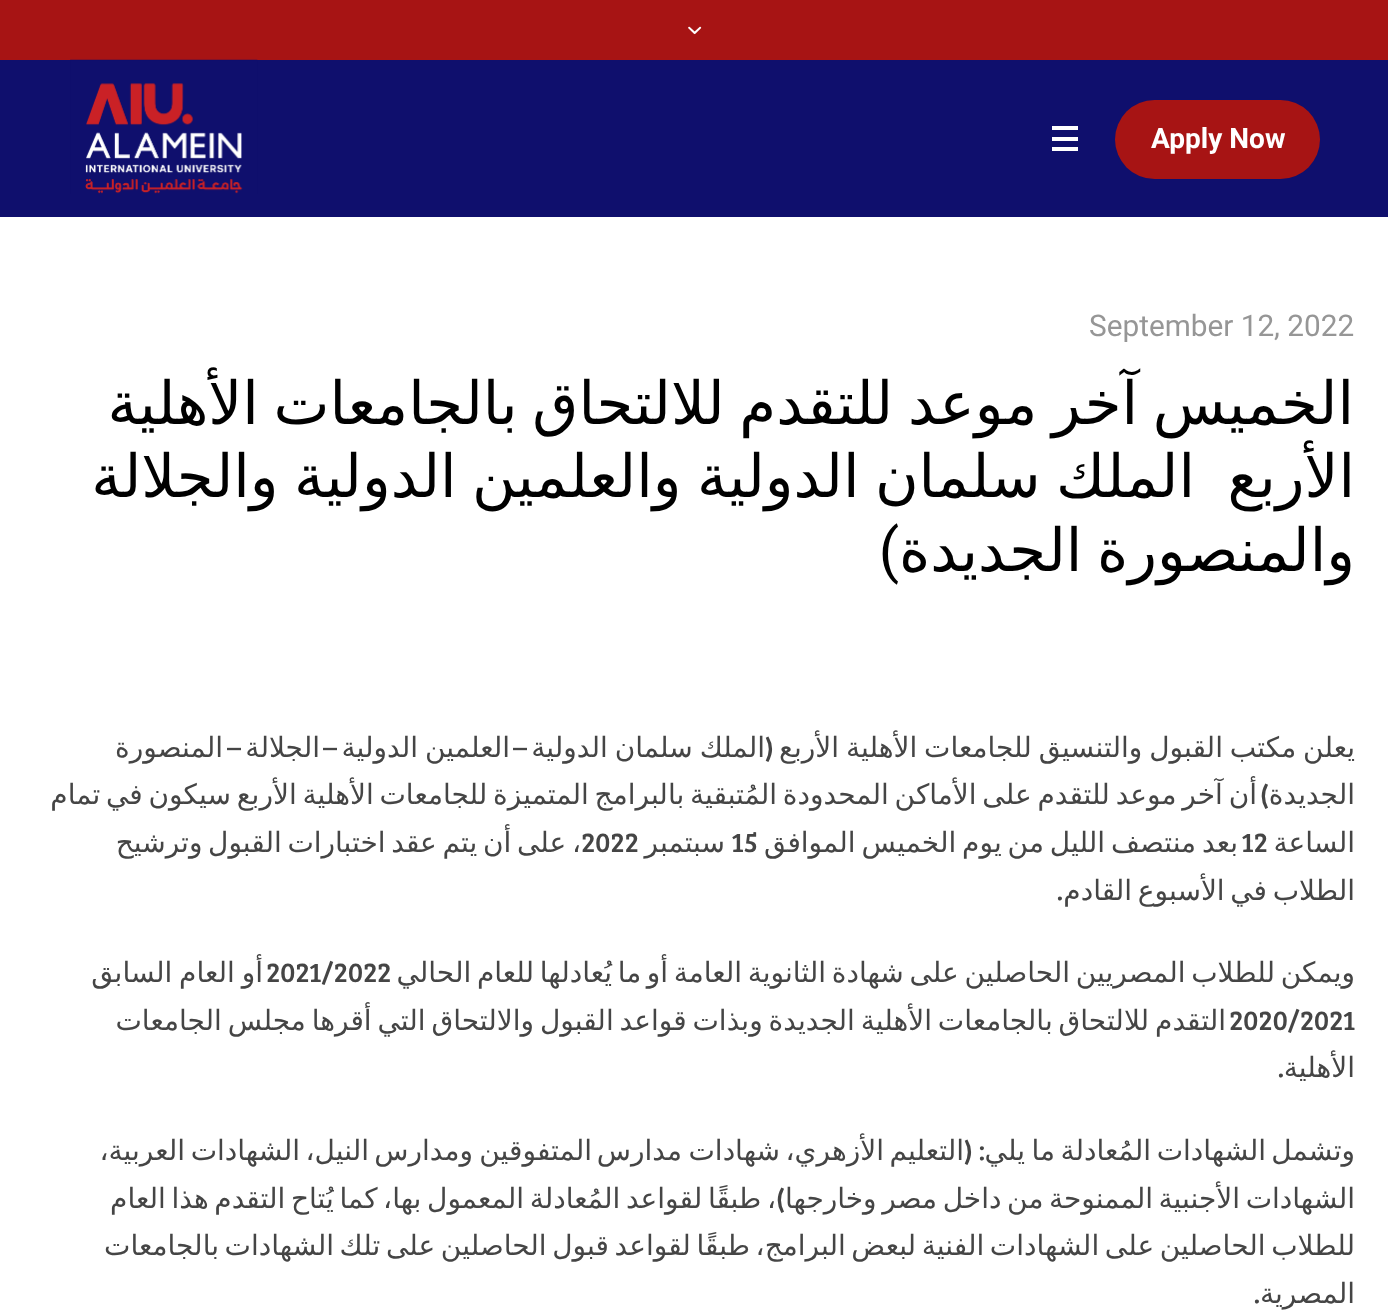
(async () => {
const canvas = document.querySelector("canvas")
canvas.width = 1388
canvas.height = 1313
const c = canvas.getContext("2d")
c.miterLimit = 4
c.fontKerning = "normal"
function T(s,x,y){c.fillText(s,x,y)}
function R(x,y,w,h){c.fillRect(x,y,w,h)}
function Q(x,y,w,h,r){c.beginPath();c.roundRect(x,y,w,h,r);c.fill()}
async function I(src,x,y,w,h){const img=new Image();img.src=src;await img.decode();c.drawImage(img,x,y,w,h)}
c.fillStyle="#fff"
R(0,0,1388,1313)
c.fillStyle="#a71414"
R(0,0,1388,60)
await I("1.png",688,26,14,9)
c.fillStyle="#0f0f6d"
R(0,60,1388,157)
c.fillStyle="#a71414"
Q(1115,100,205,79,39.5)
c.font="bold 28px Roboto"
c.fillStyle="#fff"
T("Apply Now",1151,148)
R(1052,137,26,4)
R(1052,126,26,4)
R(1052,147,26,4)
await I("2.png",70,59,188,135)
c.font="29.75px Roboto"
c.fillStyle="#969696"
T("September 12, 2022",1089,336)
c.save()
c.beginPath()
c.rect(35,305,1320,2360)
c.clip()
c.wordSpacing="-4.25px"
c.direction="rtl"
c.font="59.5px DejaVu Sans"
c.fillStyle="#000"
T("الخميس آخر موعد للتقدم للالتحاق بالجامعات الأهلية",1354,424)
c.restore()
c.direction="rtl"
c.font="59.5px DejaVu Sans"
c.fillStyle="#000"
T("الأربع",1355,497)
c.wordSpacing="-3.5px"
T("الملك سلمان الدولية والعلمين الدولية والجلالة",1195,497)
c.wordSpacing="-4.25px"
T("والمنصورة الجديدة",1355,571)
c.wordSpacing="0px"
c.font="59.5px Roboto"
T(")",899,571)
c.save()
c.beginPath()
c.rect(35,639,1320,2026)
c.clip()
c.wordSpacing="-2px"
c.font="28px DejaVu Sans"
c.fillStyle="#454545"
T("يعلن مكتب القبول والتنسيق للجامعات الأهلية الأربع",1355,757)
c.restore()
c.font="28px Bree Serif"
c.fillStyle="#454545"
T("(",774,757)
c.wordSpacing="-2px"
c.font="28px DejaVu Sans"
T("الملك سلمان الدولية",765,757)
c.wordSpacing="0px"
c.font="28px Bree Serif"
T("–",527,757)
c.wordSpacing="-2px"
c.font="28px DejaVu Sans"
T("العلمين الدولية",510,757)
c.wordSpacing="0px"
c.font="28px Bree Serif"
T("–",337,757)
c.font="28px DejaVu Sans"
T("الجلالة",320,757)
c.font="28px Bree Serif"
T("–",241,757)
c.font="28px DejaVu Sans"
T("المنصورة",223,757)
T("الجديدة",1355,804)
c.wordSpacing="-3.1px"
T("أن آخر موعد للتقدم على الأماكن المحدودة المُتبقية بالبرامج المتميزة للجامعات الأهلية الأربع سيكون في تمام",1257,804)
c.wordSpacing="0px"
c.font="28px Bree Serif"
T(")",1269,804)
c.font="28px DejaVu Sans"
T("الساعة",1355,852)
c.wordSpacing="-3px"
T("بعد منتصف الليل من يوم الخميس الموافق",1238,852)
c.wordSpacing="0px"
c.direction="ltr"
c.font="28px Bree Serif"
T("12",1241,852)
T("15",731,852)
c.direction="rtl"
c.font="28px DejaVu Sans"
T("سبتمبر",725,852)
c.wordSpacing="-3.25px"
T("، على أن يتم عقد اختبارات القبول وترشيح",581,852)
c.wordSpacing="0px"
c.direction="ltr"
c.font="28px Bree Serif"
T("2022",581,852)
c.save()
c.beginPath()
c.rect(35,639,1320,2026)
c.clip()
c.wordSpacing="-3.25px"
c.direction="rtl"
c.font="28px DejaVu Sans"
T("الطلاب في الأسبوع القادم",1355,900)
c.restore()
c.direction="rtl"
T(".",1063,900)
c.save()
c.beginPath()
c.rect(35,639,1320,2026)
c.clip()
c.wordSpacing="-3.25px"
c.font="28px DejaVu Sans"
T("ويمكن للطلاب المصريين الحاصلين على شهادة الثانوية العامة أو ما يُعادلها للعام الحالي",1355,982)
c.restore()
c.direction="ltr"
T("2021/2022",266,982)
c.wordSpacing="-2px"
c.direction="rtl"
c.font="28px DejaVu Sans"
T("أو العام السابق",263,982)
c.wordSpacing="-3px"
T("التقدم للالتحاق بالجامعات الأهلية الجديدة وبذات قواعد القبول والالتحاق التي أقرها مجلس الجامعات",1226,1030)
c.wordSpacing="0px"
c.direction="ltr"
c.font="28px Bree Serif"
T("2020/2021",1229,1030)
c.direction="rtl"
c.font="28px DejaVu Sans"
T("الأهلية",1355,1077)
c.font="28px Bree Serif"
T(".",1284,1077)
c.font="28px DejaVu Sans"
T("وتشمل",1355,1160)
T("الشهادات",1266,1160)
T("المُعادلة",1151,1160)
T("ما",1055,1160)
T("يلي",1025,1160)
c.font="28px Bree Serif"
T(": (",985,1160)
c.font="28px DejaVu Sans"
T("التعليم",964,1160)
T("الأزهري،",884,1160)
T("شهادات",780,1160)
T("مدارس",682,1160)
T("المتفوقين",592,1160)
T("ومدارس",473,1160)
T("النيل،",369,1160)
T("الشهادات",300,1160)
T("العربية،",185,1160)
c.wordSpacing="-3.25px"
T("، طبقًا لقواعد المُعادلة المعمول بها، كما يُتاح التقدم هذا العام",776,1208)
c.save()
c.beginPath()
c.rect(35,639,1320,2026)
c.clip()
T("الشهادات الأجنبية الممنوحة من داخل مصر وخارجها",1355,1208)
c.restore()
c.wordSpacing="0px"
c.font="28px Bree Serif"
T(")",785,1208)
c.save()
c.beginPath()
c.rect(35,639,1320,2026)
c.clip()
c.wordSpacing="-3.25px"
c.font="28px DejaVu Sans"
T("للطلاب الحاصلين على الشهادات الفنية لبعض البرامج، طبقًا لقواعد قبول الحاصلين على تلك الشهادات بالجامعات",1355,1255)
c.restore()
c.font="28px DejaVu Sans"
T("المصرية",1355,1303)
c.font="28px Bree Serif"
T(".",1260,1303)
})()
